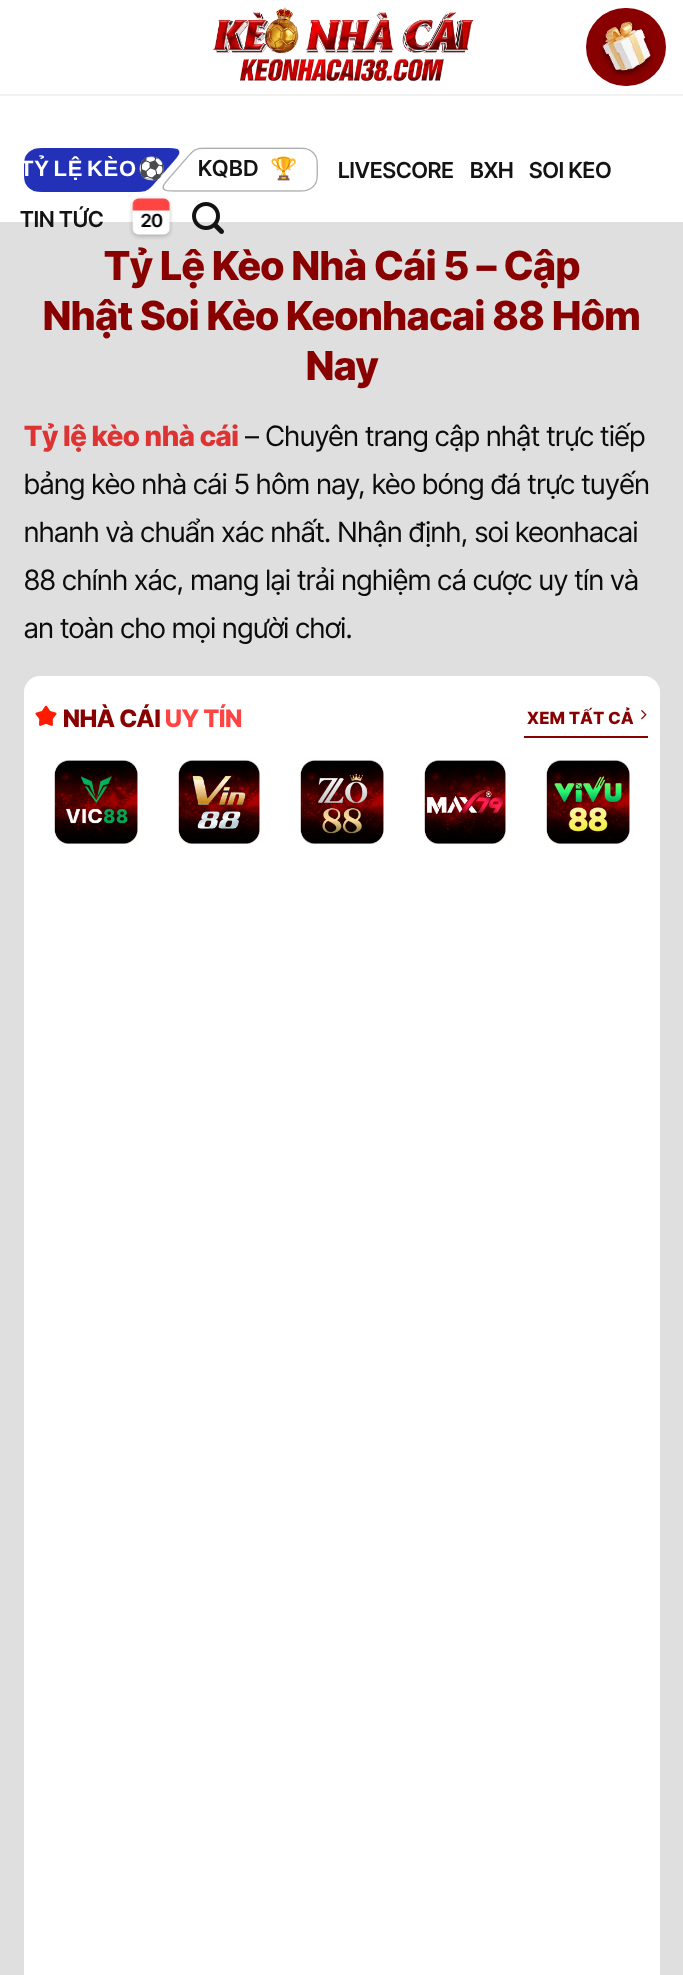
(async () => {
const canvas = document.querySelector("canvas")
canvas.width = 683
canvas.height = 1975
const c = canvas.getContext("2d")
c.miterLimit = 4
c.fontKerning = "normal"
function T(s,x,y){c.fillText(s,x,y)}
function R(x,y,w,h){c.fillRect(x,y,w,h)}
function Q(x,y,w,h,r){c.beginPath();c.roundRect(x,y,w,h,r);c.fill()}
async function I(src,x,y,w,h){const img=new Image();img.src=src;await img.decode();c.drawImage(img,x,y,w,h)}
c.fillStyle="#dfdfdf"
R(0,0,683,1975)
c.fillStyle="#fff"
R(0,0,683,94)
c.fillStyle="#f2f2f2"
R(0,94,683,2)
await I("1.png",213,7,261,74)
c.fillStyle="#800"
Q(586,8,80,78,39)
await I("2.png",600,21,54,55)
c.fillStyle="#fff"
R(0,96,683,126)
await I("3.png",24,148,156,44)
c.letterSpacing="0.75px"
c.wordSpacing="-3px"
c.font="bold 22px Liberation Sans"
T("TỶ LỆ KÈO",20,176)
c.wordSpacing="0px"
c.font="bold 22px Noto Color Emoji"
T("⚽️",138,176)
await I("4.png",162,147,156,45)
c.font="600 22px Inter Tight"
c.fillStyle="#131313"
T("KQBD",198,176)
c.font="bold 22px Noto Color Emoji"
T("🏆",270,176)
c.letterSpacing="0px"
c.font="600 22px Inter Tight"
T("LIVESCORE",338,178)
T("BXH",470,178)
T("SOI KÈO",529,178)
T("TIN TỨC",20,227)
await I("5.png",129,196,44,44)
await I("6.png",192,202,32,32)
c.font="800 40px Inter Tight"
c.fillStyle="#800"
T("Tỷ Lệ Kèo Nhà Cái 5 – Cập",104,280)
T("Nhật Soi Kèo Keonhacai 88 Hôm",43,330)
T("Nay",306,380)
c.font="800 28px Inter Tight"
c.fillStyle="#d33"
T("Tỷ lệ kèo nhà cái",24,446)
c.font="28px Inter Tight"
c.fillStyle="#0c0c0d"
T("– Chuyên trang cập nhật trực tiếp",245,446)
T("bảng kèo nhà cái 5 hôm nay, kèo bóng đá trực tuyến",24,494)
T("nhanh và chuẩn xác nhất. Nhận định, soi keonhacai",24,542)
T("88 chính xác, mang lại trải nghiệm cá cược uy tín và",24,590)
T("an toàn cho mọi người chơi.",24,638)
c.fillStyle="#fff"
Q(24,676,636,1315,16)
await I("7.png",35,705,22,21)
c.font="800 24px Inter Tight"
c.fillStyle="#800"
T("NHÀ CÁI",63,727)
c.fillStyle="#f44"
T("UY TÍN",165,727)
c.letterSpacing="0.5px"
c.font="800 16.75px Inter Tight"
c.fillStyle="#800"
T("XEM TẤT CẢ",527,724)
await I("8.png",641,710,6,10)
R(524,736,124,2)
await I("9.png",54,760,84,84)
await I("10.png",178,760,82,84)
await I("11.png",300,760,84,84)
await I("12.png",424,760,82,84)
await I("13.png",546,760,84,84)
})()
